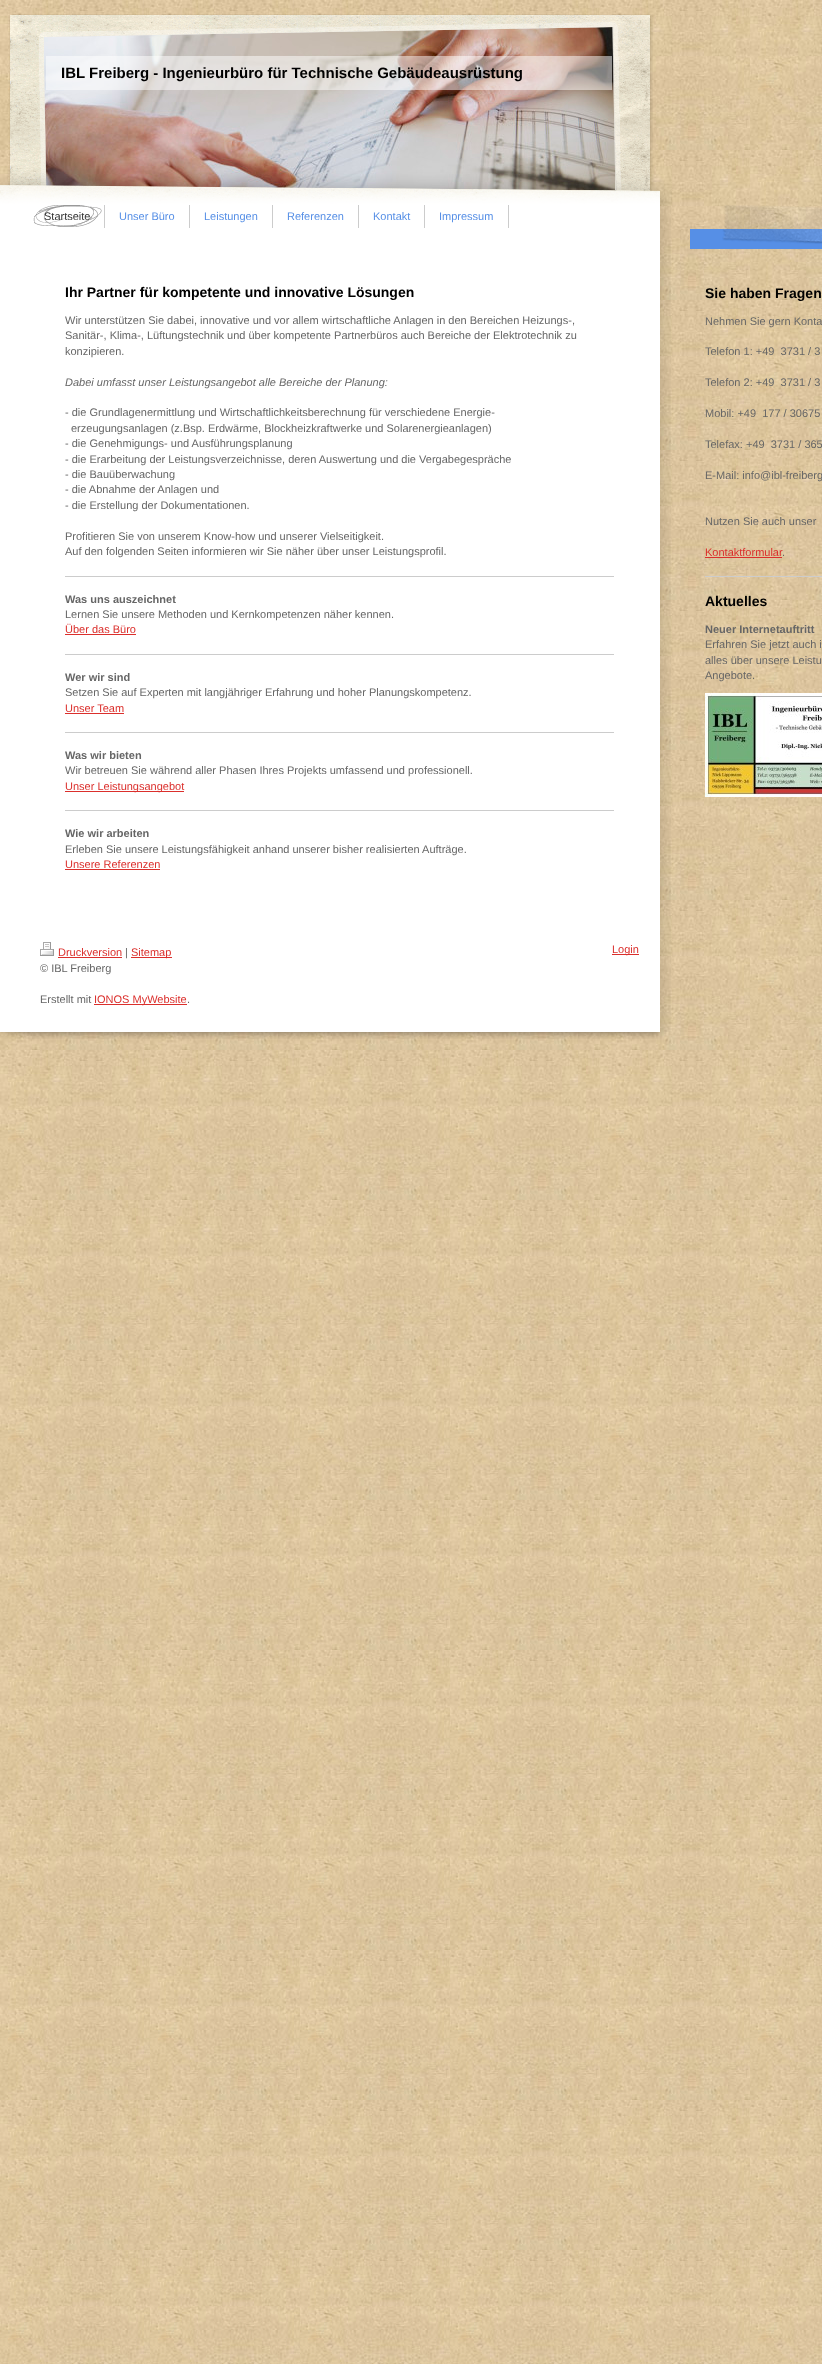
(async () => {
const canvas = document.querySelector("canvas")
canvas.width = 822
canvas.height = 2364
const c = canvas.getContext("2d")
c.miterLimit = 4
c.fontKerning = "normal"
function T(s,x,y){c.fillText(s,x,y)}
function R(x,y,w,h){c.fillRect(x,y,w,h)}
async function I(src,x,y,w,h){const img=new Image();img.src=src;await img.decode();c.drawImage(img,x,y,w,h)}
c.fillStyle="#fff"
R(0,0,822,2364)
await I("1.png",0,0,822,2364)
await I("4.png",44,27,573,164)
await I("2.png",9,14,644,23)
await I("3.png",9,37,37,132)
c.fillStyle="#ffffff80"
R(46,56,566,34)
c.font="bold 15px Liberation Sans"
c.fillStyle="#000"
T("IBL Freiberg - Ingenieurbüro für Technische Gebäudeausrüstung",61,78)
await I("5.png",612,37,41,132)
await I("6.png",0,169,672,36)
await I("7.png",0,205,671,827)
await I("8.png",33,205,37,22)
await I("9.png",70,205,34,22)
c.fillStyle="#ccc"
R(104,205,1,23)
c.font="11px Liberation Sans"
c.fillStyle="#333"
T("Startseite",44,220)
c.fillStyle="#ccc"
R(189,205,1,23)
c.fillStyle="#568fe6"
T("Unser Büro",119,220)
c.fillStyle="#ccc"
R(272,205,1,23)
c.fillStyle="#568fe6"
T("Leistungen",204,220)
c.fillStyle="#ccc"
R(358,205,1,23)
c.fillStyle="#568fe6"
T("Referenzen",287,220)
c.fillStyle="#ccc"
R(424,205,1,23)
c.fillStyle="#568fe6"
T("Kontakt",373,220)
c.fillStyle="#ccc"
R(508,205,1,23)
c.fillStyle="#568fe6"
T("Impressum",439,220)
c.font="bold 14px Liberation Sans"
c.fillStyle="#000"
T("Ihr Partner für kompetente und innovative Lösungen",65,297)
c.font="11px Liberation Sans"
c.fillStyle="#666"
T("Wir unterstützen Sie dabei, innovative und vor allem wirtschaftliche Anlagen in den Bereichen Heizungs-,",65,324)
T("Sanitär-, Klima-, Lüftungstechnik und über kompetente Partnerbüros auch Bereiche der Elektrotechnik zu",65,339)
T("konzipieren.",65,355)
c.font="italic 11px Liberation Sans"
T("Dabei umfasst unser Leistungsangebot alle Bereiche der Planung:",65,386)
c.font="11px Liberation Sans"
T("- die Grundlagenermittlung und Wirtschaftlichkeitsberechnung für verschiedene Energie-",65,416)
T("erzeugungsanlagen (z.Bsp. Erdwärme, Blockheizkraftwerke und Solarenergieanlagen)",71,432)
T("- die Genehmigungs- und Ausführungsplanung",65,447)
T("- die Erarbeitung der Leistungsverzeichnisse, deren Auswertung und die Vergabegespräche",65,463)
T("- die Bauüberwachung",65,478)
T("- die Abnahme der Anlagen und",65,493)
T("- die Erstellung der Dokumentationen.",65,509)
T("Profitieren Sie von unserem Know-how und unserer Vielseitigkeit.",65,540)
T("Auf den folgenden Seiten informieren wir Sie näher über unser Leistungsprofil.",65,555)
c.fillStyle="#ccc"
R(65,576,549,1)
c.font="bold 11px Liberation Sans"
c.fillStyle="#666"
T("Was uns auszeichnet",65,603)
c.font="11px Liberation Sans"
T("Lernen Sie unsere Methoden und Kernkompetenzen näher kennen.",65,618)
c.fillStyle="#db2f2c"
T("Über das Büro",65,633)
R(65,634,71,1)
c.fillStyle="#ccc"
R(65,654,549,1)
c.font="bold 11px Liberation Sans"
c.fillStyle="#666"
T("Wer wir sind",65,681)
c.font="11px Liberation Sans"
T("Setzen Sie auf Experten mit langjähriger Erfahrung und hoher Planungskompetenz.",65,696)
c.fillStyle="#db2f2c"
T("Unser Team",65,712)
R(65,713,59,1)
c.fillStyle="#ccc"
R(65,732,549,1)
c.font="bold 11px Liberation Sans"
c.fillStyle="#666"
T("Was wir bieten",65,759)
c.font="11px Liberation Sans"
T("Wir betreuen Sie während aller Phasen Ihres Projekts umfassend und professionell.",65,774)
c.fillStyle="#db2f2c"
R(65,791,119,1)
T("Unser Leistungsangebot",65,790)
c.fillStyle="#ccc"
R(65,810,549,1)
c.font="bold 11px Liberation Sans"
c.fillStyle="#666"
T("Wie wir arbeiten",65,837)
c.font="11px Liberation Sans"
T("Erleben Sie unsere Leistungsfähigkeit anhand unserer bisher realisierten Aufträge.",65,853)
c.fillStyle="#db2f2c"
T("Unsere Referenzen",65,868)
R(65,869,95,1)
await I("10.png",40,942,14,14)
T("Druckversion",58,956)
R(58,957,64,1)
c.fillStyle="#666"
T("|",125,956)
c.fillStyle="#db2f2c"
R(131,957,41,1)
T("Sitemap",131,956)
c.fillStyle="#666"
T("© IBL Freiberg",40,972)
T("Erstellt mit",40,1003)
c.fillStyle="#db2f2c"
R(94,1004,93,1)
T("IONOS MyWebsite",94,1003)
c.fillStyle="#666"
T(".",187,1003)
c.fillStyle="#db2f2c"
R(612,954,27,1)
T("Login",612,953)
await I("11.png",0,1032,666,7)
c.fillStyle="#568fe6"
R(690,229,132,20)
await I("12.png",722,205,100,39)
c.font="bold 14px Liberation Sans"
c.fillStyle="#000"
T("Sie haben Fragen",705,298)
c.font="11px Liberation Sans"
c.fillStyle="#666"
T("Nehmen Sie gern Konta",705,325)
T("Telefon 1: +49  3731 / 3",705,355)
T("Telefon 2: +49  3731 / 3",705,386)
T("Mobil: +49  177 / 30675",705,417)
T("Telefax: +49  3731 / 365",705,448)
T("E-Mail: info@ibl-freiberg",705,479)
T("Nutzen Sie auch unser",705,525)
c.fillStyle="#db2f2c"
T("Kontaktformular",705,556)
R(705,557,77,1)
c.fillStyle="#666"
T(".",782,556)
c.fillStyle="#ccc"
R(705,576,117,1)
c.font="bold 14px Liberation Sans"
c.fillStyle="#000"
T("Aktuelles",705,606)
c.font="bold 11px Liberation Sans"
c.fillStyle="#666"
T("Neuer Internetauftritt",705,633)
c.font="11px Liberation Sans"
T("Erfahren Sie jetzt auch i",705,648)
T("alles über unsere Leistu",705,664)
T("Angebote.",705,679)
await I("13.png",705,693,117,104)
})()
